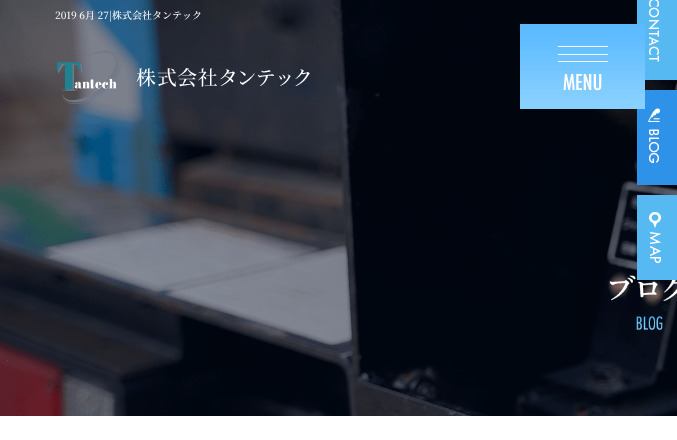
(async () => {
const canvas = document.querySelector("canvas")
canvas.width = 677
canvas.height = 440
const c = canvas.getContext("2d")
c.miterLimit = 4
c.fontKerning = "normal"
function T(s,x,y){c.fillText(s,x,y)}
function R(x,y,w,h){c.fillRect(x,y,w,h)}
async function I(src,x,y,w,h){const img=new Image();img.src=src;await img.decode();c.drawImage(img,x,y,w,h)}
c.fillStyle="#fff"
R(0,0,677,440)
await I("1.png",0,0,677,416)
c.font="500 10px Noto Serif JP"
T("2019 6月 27|株式会社タンテック",55,19)
await I("2.png",56,50,254,54)
await I("4.png",637,0,40,80)
await I("5.png",637,90,40,95)
await I("3.png",520,24,125,85)
await I("6.png",637,195,40,85)
})()
